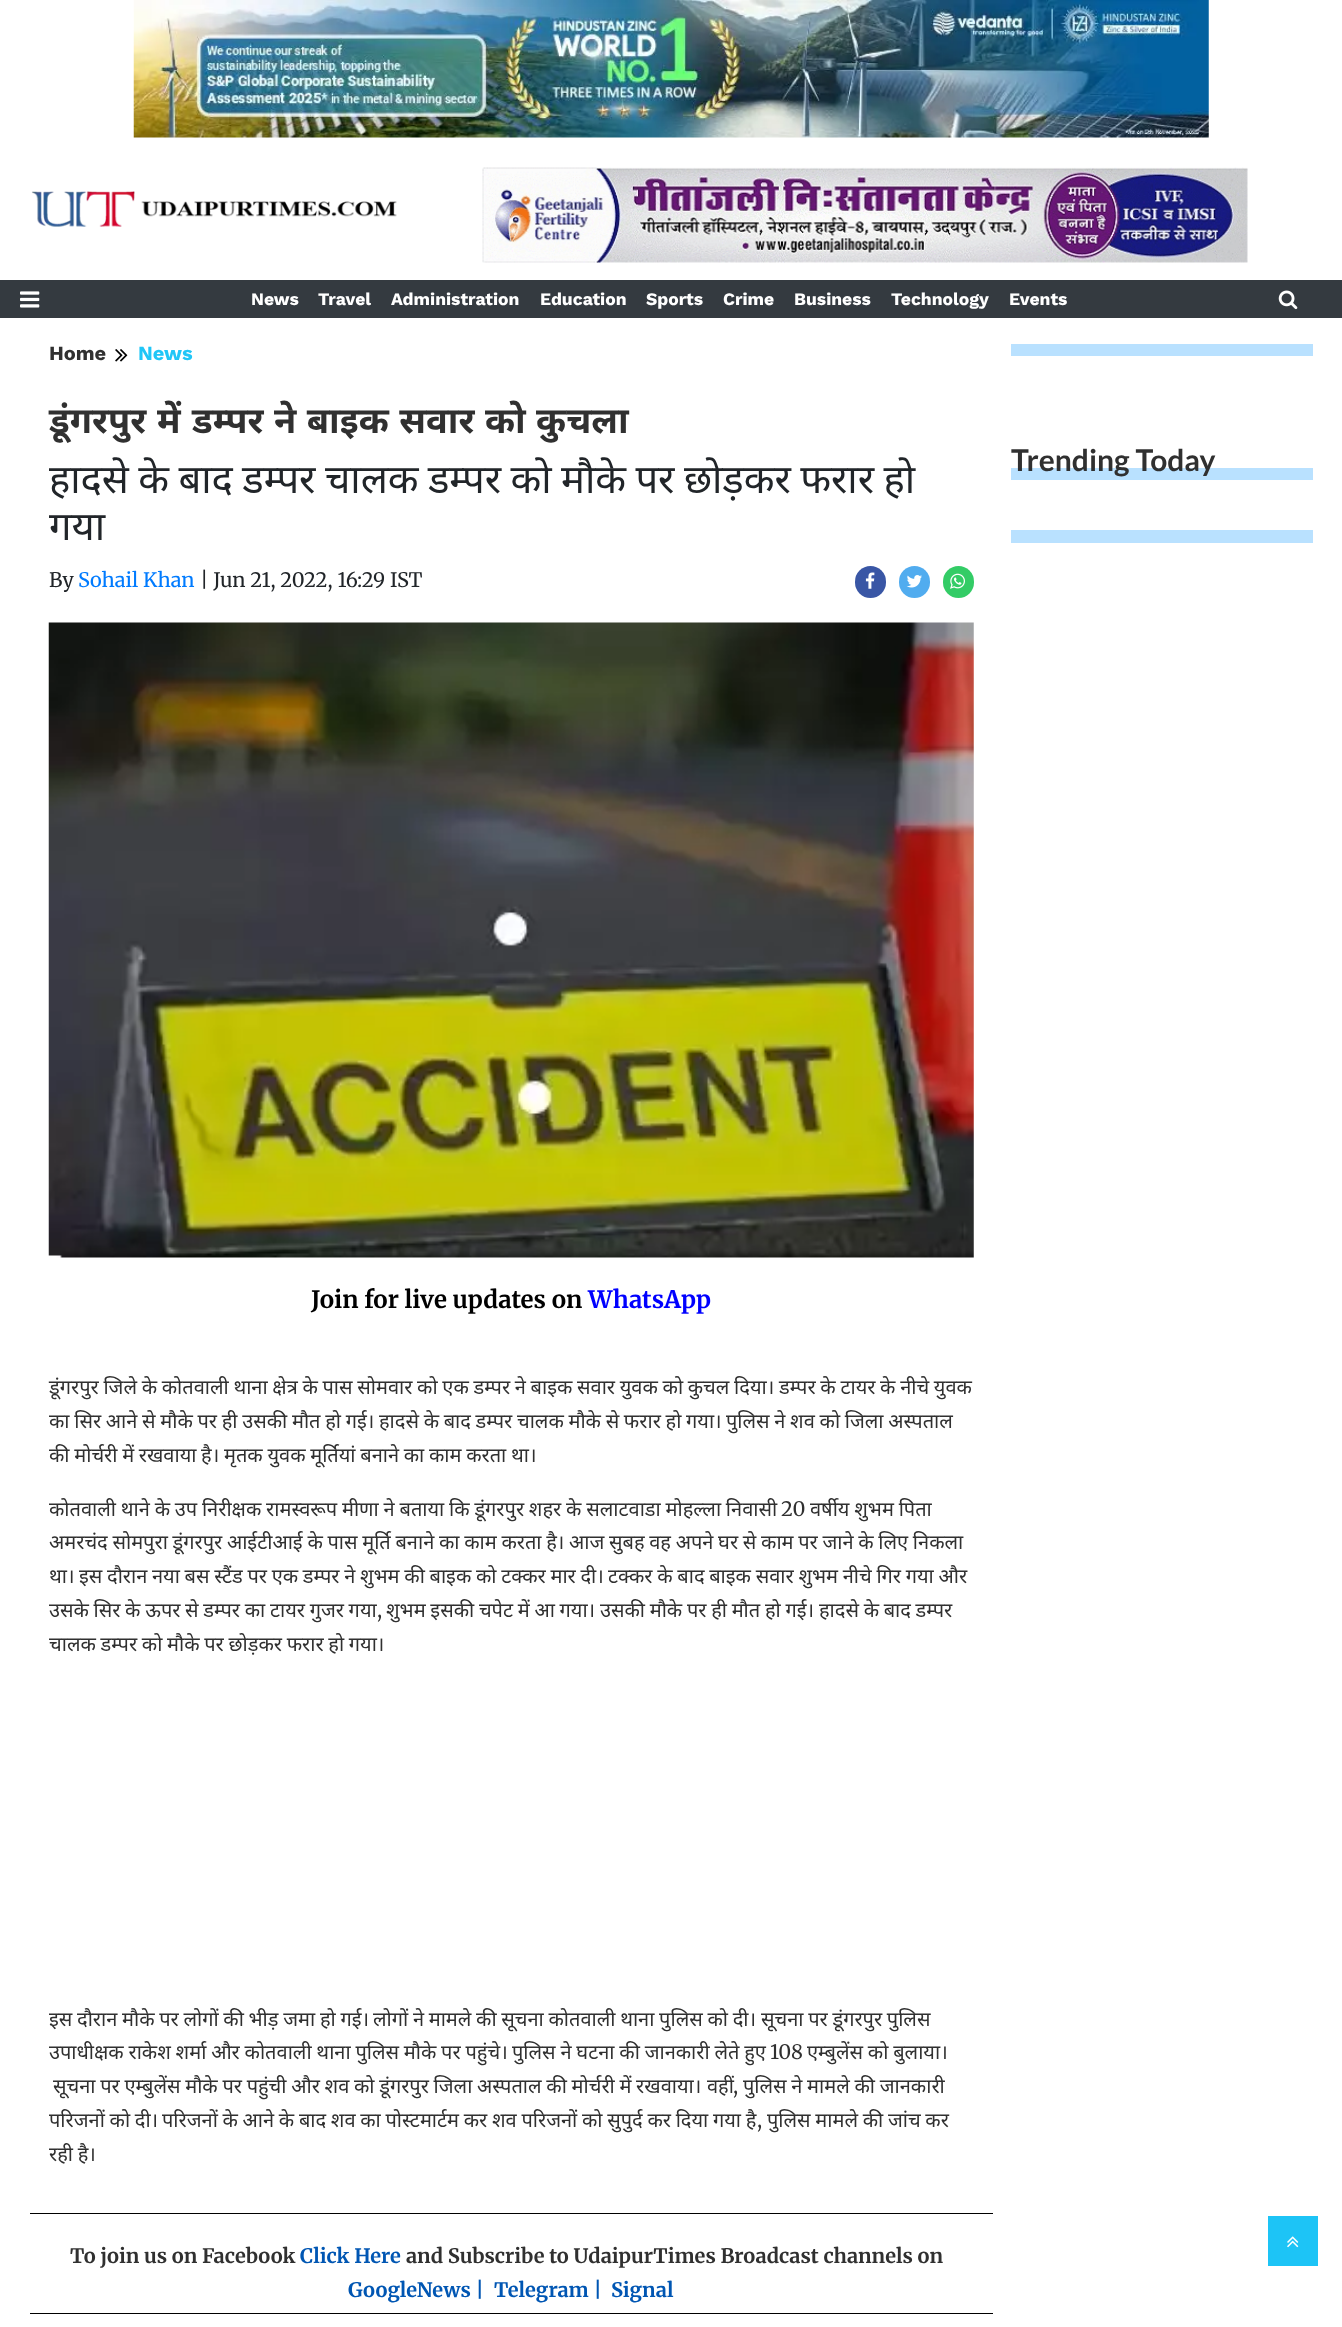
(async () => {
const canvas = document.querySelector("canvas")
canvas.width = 1342
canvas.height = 2327
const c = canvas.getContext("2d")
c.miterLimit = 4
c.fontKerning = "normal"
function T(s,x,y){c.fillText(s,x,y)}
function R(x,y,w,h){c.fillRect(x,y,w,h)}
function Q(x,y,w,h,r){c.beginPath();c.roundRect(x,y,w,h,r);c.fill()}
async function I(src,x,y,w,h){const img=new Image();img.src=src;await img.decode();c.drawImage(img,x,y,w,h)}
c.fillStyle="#fff"
R(0,0,1342,2327)
await I("1.png",133,0,1076,138)
await I("2.png",31,191,366,36)
await I("3.png",482,167,766,96)
c.fillStyle="#343a40"
R(0,280,1342,38)
await I("4.png",20,291,20,17)
c.font="bold 17.5px Work Sans"
c.fillStyle="#fff"
T("News",251,305)
T("Travel",318,305)
T("Administration",391,305)
T("Education",540,305)
T("Sports",646,305)
T("Crime",723,305)
T("Business",794,305)
T("Technology",891,305)
T("Events",1009,305)
await I("5.png",1278,290,20,20)
c.font="bold 20px Work Sans"
c.fillStyle="#303030"
T("Home",49,360)
await I("6.png",115,349,13,13)
c.fillStyle="#20c6f7"
T("News",138,360)
c.font="bold 36.25px Noto Sans"
c.fillStyle="#303030"
T("डूंगरपुर",49,433)
T("में",157,433)
c.wordSpacing="1px"
T("डम्पर ने बाइक सवार को कुचला",192,433)
c.wordSpacing="-1px"
c.font="40px Noto Sans"
c.fillStyle="#212529"
T("हादसे के बाद डम्पर चालक डम्पर को मौके पर छोड़कर फरार हो",49,493)
c.wordSpacing="0px"
T("गया",49,540)
c.font="20px Merriweather"
T("By",49,587)
c.fillStyle="#007bff"
T("Sohail Khan",78,587)
c.fillStyle="#212529"
T("| Jun 21, 2022, 16:29 IST",200,587)
c.fillStyle="#3956a5"
Q(855,566,31,32,15.5)
await I("7.png",865,572,10,17)
c.fillStyle="#51acef"
Q(899,566,31,32,15.5)
await I("8.png",906,575,16,13)
c.fillStyle="#3c6"
Q(943,566,31,32,15.5)
await I("9.png",950,573,15,16)
await I("10.png",48,622,926,636)
c.font="bold 24px Merriweather"
c.fillStyle="#000"
T("Join for live updates on",311,1308)
c.fillStyle="#00f"
T("WhatsApp",588,1308)
c.wordSpacing="-0.5px"
c.font="20px Noto Sans"
c.fillStyle="#303030"
T("डूंगरपुर जिले के कोतवाली थाना क्षेत्र के पास सोमवार को एक डम्पर ने बाइक सवार युवक को कुचल दिया।",49,1394)
T("डम्पर के टायर के नीचे युवक",779,1394)
T("का सिर आने से मौके पर ही उसकी मौत हो गई।",49,1428)
T("हादसे के बाद डम्पर चालक मौके से फरार हो गया।",379,1428)
T("पुलिस ने शव को जिला अस्पताल",726,1428)
T("की मोर्चरी में रखवाया है।",49,1462)
T("मृतक युवक मूर्तियां बनाने का काम करता था।",224,1462)
c.wordSpacing="-0.4px"
T("कोतवाली थाने के उप निरीक्षक रामस्वरूप मीणा ने बताया कि डूंगरपुर शहर के सलाटवाडा मोहल्ला निवासी",49,1516)
c.wordSpacing="0px"
c.font="20px Merriweather"
T("20",781,1516)
c.wordSpacing="-0.4px"
c.font="20px Noto Sans"
T("वर्षीय शुभम पिता",810,1516)
c.wordSpacing="-0.5px"
T("अमरचंद सोमपुरा डूंगरपुर आईटीआई के पास मूर्ति बनाने का काम करता है।",49,1549)
T("आज सुबह वह अपने घर से काम पर जाने के लिए निकला",569,1549)
c.wordSpacing="0px"
T("था।",49,1583)
c.wordSpacing="-0.5px"
T("इस दौरान नया बस स्टैंड पर एक डम्पर ने शुभम की बाइक को टक्कर मार दी।",79,1583)
T("टक्कर के बाद बाइक सवार शुभम नीचे गिर गया और",608,1583)
T("उसके सिर के ऊपर से डम्पर का टायर गुजर गया",49,1617)
c.wordSpacing="0px"
c.font="20px Merriweather"
T(",",377,1617)
c.wordSpacing="-0.5px"
c.font="20px Noto Sans"
T("शुभम इसकी चपेट में आ गया।",386,1617)
T("उसकी मौके पर ही मौत हो गई।",600,1617)
T("हादसे के बाद डम्पर",819,1617)
T("चालक डम्पर को मौके पर छोड़कर फरार हो गया।",49,1651)
T("इस दौरान मौके पर लोगों की भीड़ जमा हो गई।",49,2026)
T("लोगों ने मामले की सूचना कोतवाली थाना पुलिस को दी।",373,2026)
T("सूचना पर डूंगरपुर पुलिस",761,2026)
c.wordSpacing="-0.4px"
T("उपाधीक्षक राकेश शर्मा और कोतवाली थाना पुलिस मौके पर पहुंचे।",49,2059)
T("पुलिस ने घटना की जानकारी लेते हुए",512,2059)
c.wordSpacing="0px"
c.font="20px Merriweather"
T("108",770,2059)
c.wordSpacing="-0.4px"
c.font="20px Noto Sans"
T("एम्बुलेंस को बुलाया।",807,2059)
c.wordSpacing="-0.5px"
T("सूचना पर एम्बुलेंस मौके पर पहुंची और शव को डूंगरपुर जिला अस्पताल की मोर्चरी में रखवाया।",53,2093)
c.wordSpacing="0px"
T("वहीं",707,2093)
c.font="20px Merriweather"
T(",",733,2093)
c.wordSpacing="-0.5px"
c.font="20px Noto Sans"
T("पुलिस ने मामले की जानकारी",743,2093)
T("परिजनों को दी।",49,2127)
T("परिजनों के आने के बाद शव का पोस्टमार्टम कर शव परिजनों को सुपुर्द कर दिया गया है",162,2127)
c.wordSpacing="0px"
c.font="20px Merriweather"
T(",",757,2127)
c.wordSpacing="-0.5px"
c.font="20px Noto Sans"
T("पुलिस मामले की जांच कर",767,2127)
T("रही है।",49,2161)
c.fillStyle="#000"
R(30,2213,963,1)
R(30,2313,963,1)
c.wordSpacing="0px"
c.font="bold 20px Merriweather"
c.fillStyle="#303030"
T("To join us on Facebook",70,2263)
c.fillStyle="#0056b3"
T("Click Here",300,2263)
c.fillStyle="#303030"
T("and Subscribe to UdaipurTimes Broadcast channels on",406,2263)
c.fillStyle="#0056b3"
T("GoogleNews |",348,2297)
T("Telegram |",494,2297)
T("Signal",611,2297)
c.fillStyle="#b9e1ff"
R(1011,344,302,12)
R(1011,468,302,12)
c.font="bold 30px Lato"
c.fillStyle="#303030"
T("Trending Today",1011,471)
c.fillStyle="#b9e1ff"
R(1011,530,302,13)
c.fillStyle="#1dc4f6"
R(1268,2216,50,50)
await I("11.png",1287,2236,12,12)
})()
